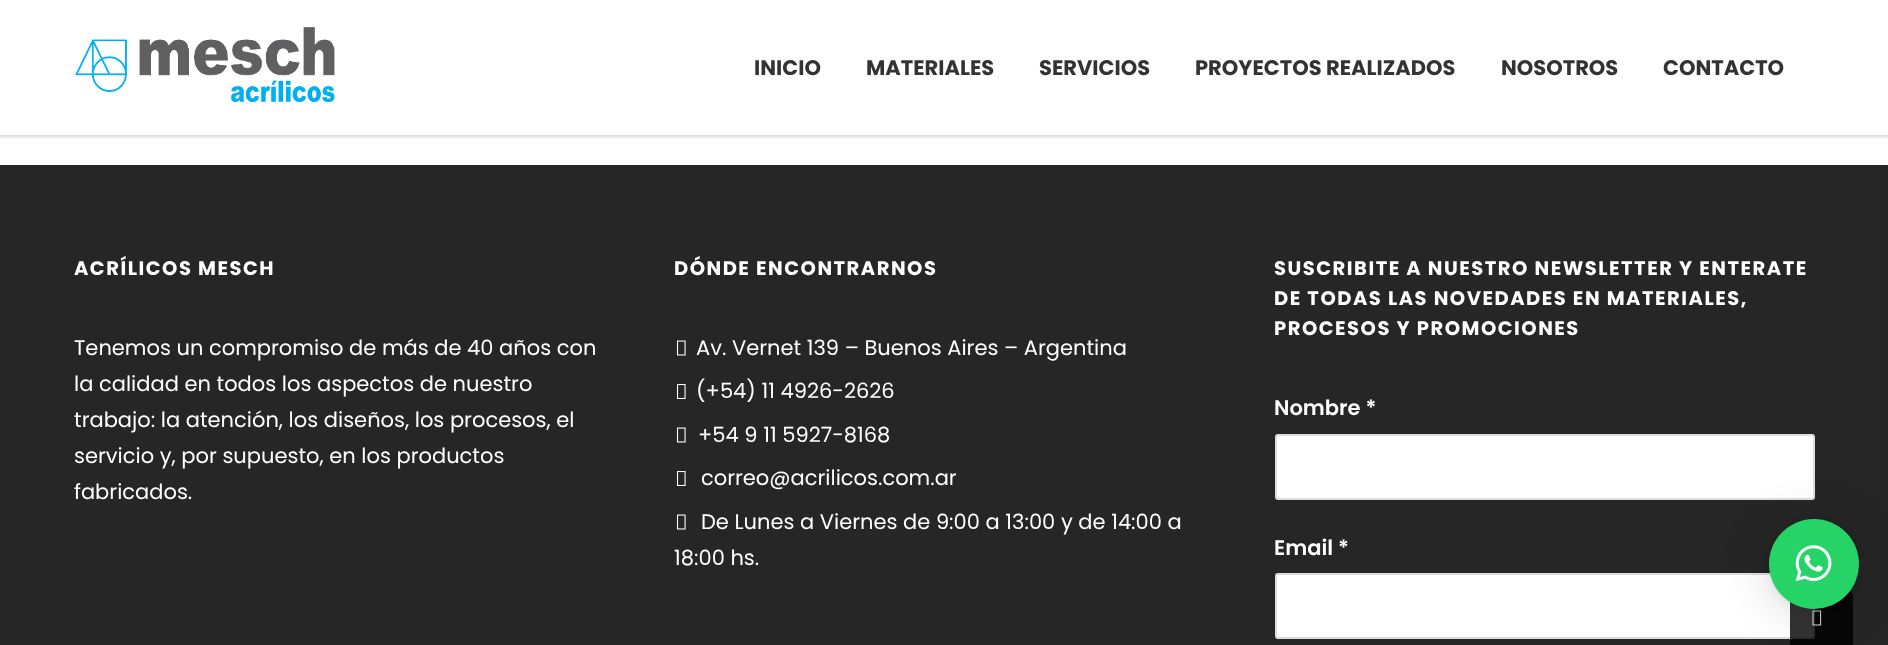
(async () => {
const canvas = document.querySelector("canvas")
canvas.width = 1888
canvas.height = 645
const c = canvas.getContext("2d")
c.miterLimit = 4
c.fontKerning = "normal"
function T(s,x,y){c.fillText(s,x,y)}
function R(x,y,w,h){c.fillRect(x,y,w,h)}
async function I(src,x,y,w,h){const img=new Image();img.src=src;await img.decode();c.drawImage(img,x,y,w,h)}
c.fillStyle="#fff"
R(0,0,1888,645)
c.fillStyle="#00000029"
c.filter="blur(1.5px)"
c.beginPath()
c.rect(-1,-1,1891,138)
c.fill()
c.filter="none"
c.fillStyle="#fff"
R(0,0,1888,135)
await I("1.png",75,27,260,75)
c.font="bold 21px Poppins"
c.fillStyle="#333"
T("INICIO",754,75)
T("MATERIALES",866,75)
T("SERVICIOS",1039,75)
T("PROYECTOS REALIZADOS",1195,75)
T("NOSOTROS",1501,75)
T("CONTACTO",1663,75)
c.fillStyle="#262626"
R(0,165,1888,480)
c.letterSpacing="1.5px"
c.font="bold 19.5px Poppins"
c.fillStyle="#fff"
T("ACRÍLICOS MESCH",74,275)
c.letterSpacing="0px"
c.font="21px Poppins"
T("Tenemos un compromiso de más de 40 años con",74,355)
T("la calidad en todos los aspectos de nuestro",74,391)
T("trabajo: la atención, los diseños, los procesos, el",74,427)
T("servicio y, por supuesto, en los productos",74,463)
T("fabricados.",74,499)
c.letterSpacing="1.5px"
c.font="bold 19.5px Poppins"
T("DÓNDE ENCONTRARNOS",674,275)
await I("2.png",676,340,10,16)
c.letterSpacing="0px"
c.font="21px Poppins"
T("Av. Vernet 139 – Buenos Aires – Argentina",696,355)
await I("3.png",676,384,10,15)
T("(+54) 11 4926-2626",696,398)
await I("2.png",676,427,10,16)
T("+54 9 11 5927-8168",698,442)
await I("3.png",676,471,10,15)
T("correo@acrilicos.com.ar",701,485)
await I("2.png",676,514,10,16)
T("De Lunes a Viernes de 9:00 a 13:00 y de 14:00 a",701,529)
T("18:00 hs.",674,565)
c.letterSpacing="1.5px"
c.font="bold 19.5px Poppins"
T("SUSCRIBITE A NUESTRO NEWSLETTER Y ENTERATE",1274,275)
T("DE TODAS LAS NOVEDADES EN MATERIALES,",1274,305)
T("PROCESOS Y PROMOCIONES",1274,335)
c.letterSpacing="0px"
c.font="600 21px Poppins"
T("Nombre *",1274,415)
c.beginPath()
c.roundRect(1276,435,538,64,2)
c.fill()
c.strokeStyle="#ddd"
c.lineWidth=2
c.stroke()
T("Email *",1274,555)
c.beginPath()
c.roundRect(1276,574,538,64,2)
c.fill()
c.stroke()
c.fillStyle="#000000cc"
c.beginPath()
c.roundRect(1790,591,63,54,[5,5,0,0])
c.fill()
await I("5.png",1812,610,10,16)
c.fillStyle="#00000029"
c.filter="blur(24px)"
c.beginPath()
c.roundRect(1769,522,90,90,45)
c.fill()
c.filter="none"
c.fillStyle="#0000000f"
c.filter="blur(4.5px)"
c.beginPath()
c.roundRect(1769,521,90,90,45)
c.fill()
c.filter="none"
c.fillStyle="#25d366"
c.beginPath()
c.arc(1814,564,45,0,7)
c.fill()
await I("4.png",1795,545,37,37)
})()
